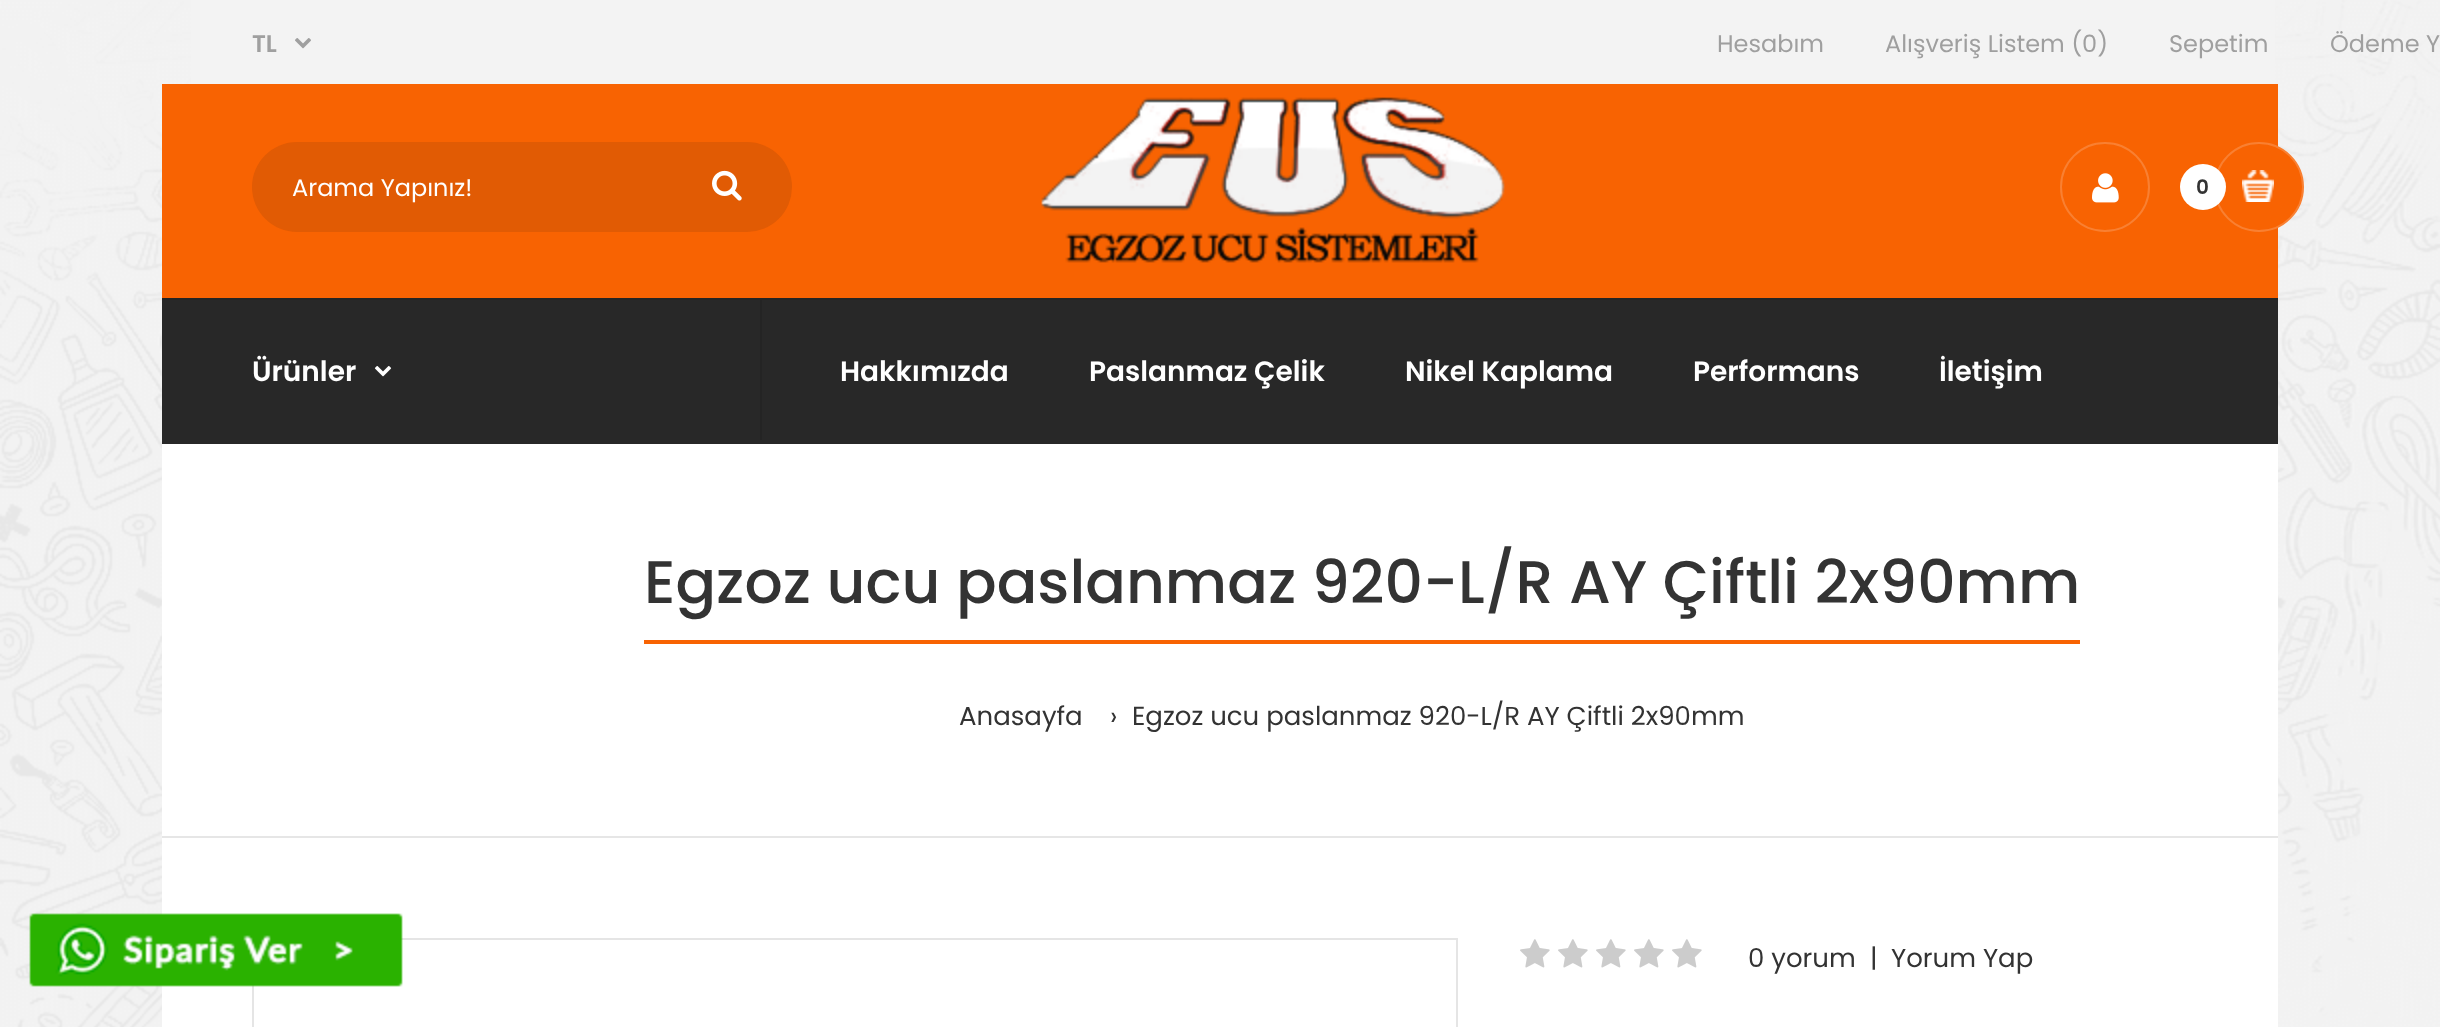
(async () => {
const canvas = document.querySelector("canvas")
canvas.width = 2440
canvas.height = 1027
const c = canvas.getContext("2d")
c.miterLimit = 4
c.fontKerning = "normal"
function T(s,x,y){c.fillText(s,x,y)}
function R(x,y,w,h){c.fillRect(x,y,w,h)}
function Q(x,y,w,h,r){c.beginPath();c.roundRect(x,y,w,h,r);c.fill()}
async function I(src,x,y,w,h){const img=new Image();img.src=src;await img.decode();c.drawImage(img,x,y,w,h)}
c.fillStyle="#fff"
R(0,0,2440,1027)
await I("1.png",0,0,2440,1027)
R(162,444,2116,583)
c.fillStyle="#f86302"
R(162,84,2116,214)
c.fillStyle="#f3f3f3"
R(191,0,2084,84)
c.font="600 24px Poppins"
c.fillStyle="#9f9f9f"
T("TL",252,52)
await I("2.png",295,38,16,11)
c.font="24px Poppins"
T("Hesabım",1717,52)
T("Alışveriş Listem (0)",1885,52)
T("Sepetim",2169,52)
T("Ödeme Y",2330,52)
c.fillStyle="#e15b04"
Q(252,142,540,90,45)
c.fillStyle="#fff"
T("Arama Yapınız!",292,196)
await I("3.png",712,170,30,31)
await I("4.png",1041,97,464,166)
c.beginPath()
c.arc(2105,187,44,0,7)
c.strokeStyle="#f98032"
c.lineWidth=2
c.stroke()
await I("5.png",2092,173,27,30)
c.fillStyle="#f86302"
c.beginPath()
c.arc(2259,187,44,0,7)
c.fill()
c.stroke()
c.fillStyle="#fff"
c.beginPath()
c.arc(2203,187,23,0,7)
c.fill()
c.font="600 20px Poppins"
c.fillStyle="#333"
T("0",2196,194)
await I("6.png",2242,170,32,32)
c.fillStyle="#282828"
R(162,300,2116,144)
c.fillStyle="#242424"
R(762,298,1516,2)
R(760,298,2,142)
R(162,298,598,2)
c.font="600 28px Poppins"
c.fillStyle="#fff"
T("Ürünler",252,381)
await I("7.png",374,366,18,11)
T("Hakkımızda",840,381)
T("Paslanmaz Çelik",1089,381)
T("Nikel Kaplama",1405,381)
T("Performans",1693,381)
T("İletişim",1939,381)
c.fillStyle="#e6e6e6"
R(162,836,2116,2)
c.fillStyle="#f86302"
R(644,640,1436,4)
c.font="500 60px Poppins"
c.fillStyle="#333"
T("Egzoz ucu paslanmaz 920-L/R AY Çiftli 2x90mm",644,603)
c.font="26px Poppins"
T("Anasayfa",959,725)
T("›",1110,725)
T("Egzoz ucu paslanmaz 920-L/R AY Çiftli 2x90mm",1132,725)
c.strokeStyle="#e5e5e5"
c.strokeRect(253,939,1204,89)
await I("8.png",29,913,374,74)
await I("9.png",1520,939,30,29)
await I("9.png",1558,939,30,29)
await I("9.png",1596,939,30,29)
await I("9.png",1634,939,30,29)
await I("9.png",1672,939,30,29)
T("0 yorum",1748,967)
T("|",1870,967)
T("Yorum Yap",1891,967)
})()
